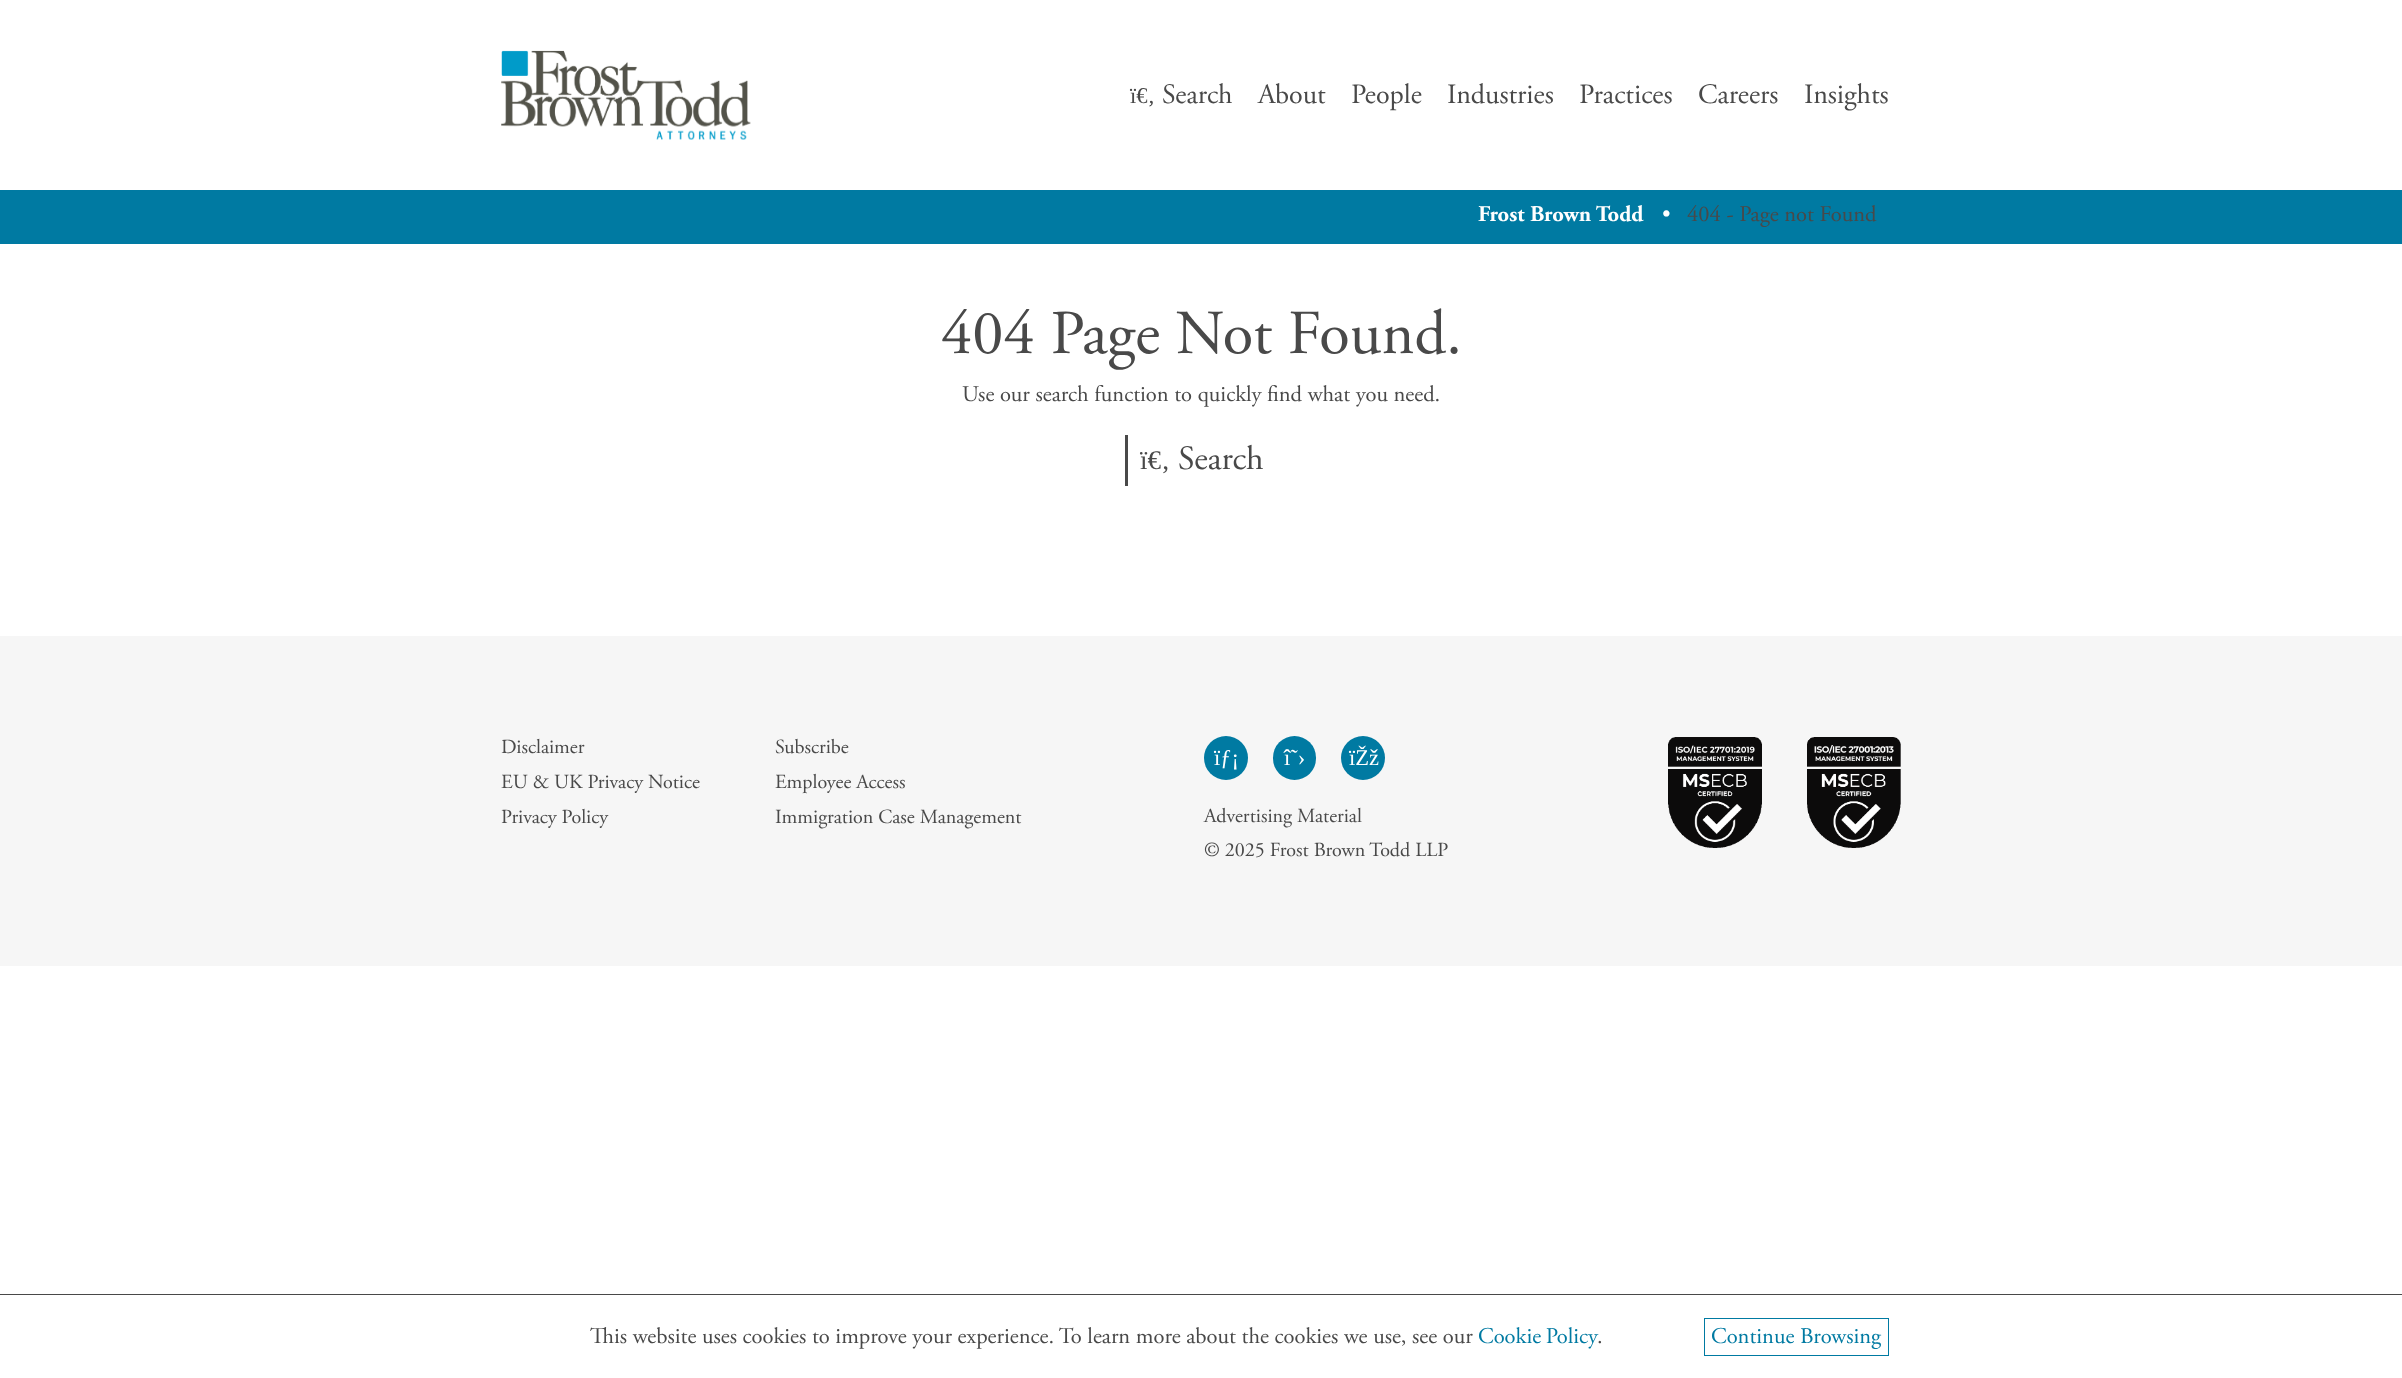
(async () => {
const canvas = document.querySelector("canvas")
canvas.width = 2402
canvas.height = 1378
const c = canvas.getContext("2d")
c.miterLimit = 4
c.fontKerning = "normal"
function T(s,x,y){c.fillText(s,x,y)}
function R(x,y,w,h){c.fillRect(x,y,w,h)}
function Q(x,y,w,h,r){c.beginPath();c.roundRect(x,y,w,h,r);c.fill()}
async function I(src,x,y,w,h){const img=new Image();img.src=src;await img.decode();c.drawImage(img,x,y,w,h)}
c.fillStyle="#fff"
R(0,0,2402,1378)
await I("1.png",501,50,250,90)
c.font="22.5px Liberation Serif"
c.fillStyle="#494949"
T("ï€‚",1130,103)
c.font="28px Adobe Garamond"
T("Search",1162,103)
T("About",1258,103)
T("People",1351,103)
T("Industries",1447,103)
T("Practices",1579,103)
T("Careers",1698,103)
T("Insights",1804,103)
c.fillStyle="#007aa2"
R(0,190,2402,54)
c.font="bold 22.5px Adobe Garamond"
c.fillStyle="#fff"
T("Frost Brown Todd",1478,221)
c.font="22.5px Adobe Garamond"
T("•",1662,221)
c.fillStyle="#494949"
T("404 - Page not Found",1687,221)
c.font="62.5px Adobe Garamond"
T("404 Page Not Found.",941,353)
c.font="22.5px Adobe Garamond"
T("Use our search function to quickly find what you need.",962,401)
R(1125,435,3,51)
c.font="27px Liberation Serif"
T("ï€‚",1140,469)
c.font="34px Adobe Garamond"
T("Search",1178,469)
c.fillStyle="#f6f6f6"
R(0,636,2402,330)
c.font="20px Adobe Garamond"
c.fillStyle="#494949"
T("Disclaimer",501,753)
T("EU & UK Privacy Notice",501,788)
T("Privacy Policy",501,823)
T("Subscribe",775,753)
T("Employee Access",775,788)
T("Immigration Case Management",775,823)
c.fillStyle="#007aa2"
c.beginPath()
c.arc(1226,758,22,0,7)
c.fill()
c.font="22.5px Liberation Serif"
c.fillStyle="#fff"
T("ïƒ¡",1214,765)
c.fillStyle="#007aa2"
Q(1273,736,43,44,21.5)
c.fillStyle="#fff"
T("î˜›",1284,765)
c.fillStyle="#007aa2"
c.beginPath()
c.arc(1363,758,22,0,7)
c.fill()
c.fillStyle="#fff"
T("ïŽž",1349,765)
c.font="20px Adobe Garamond"
c.fillStyle="#494949"
T("Advertising Material",1204,822)
T("© 2025 Frost Brown Todd LLP",1204,856)
await I("2.png",1668,737,94,111)
await I("3.png",1807,737,94,111)
R(0,1294,2402,1)
c.font="22.5px Adobe Garamond"
T("This website uses cookies to improve your experience. To learn more about the cookies we use, see our",590,1343)
c.wordSpacing="-1px"
c.fillStyle="#007aa2"
T("Cookie Policy",1478,1343)
c.wordSpacing="0px"
c.fillStyle="#494949"
T(".",1597,1343)
c.strokeStyle="#007aa2"
c.strokeRect(1704.5,1318.5,184,37)
c.fillStyle="#007aa2"
T("Continue Browsing",1711,1343)
})()
